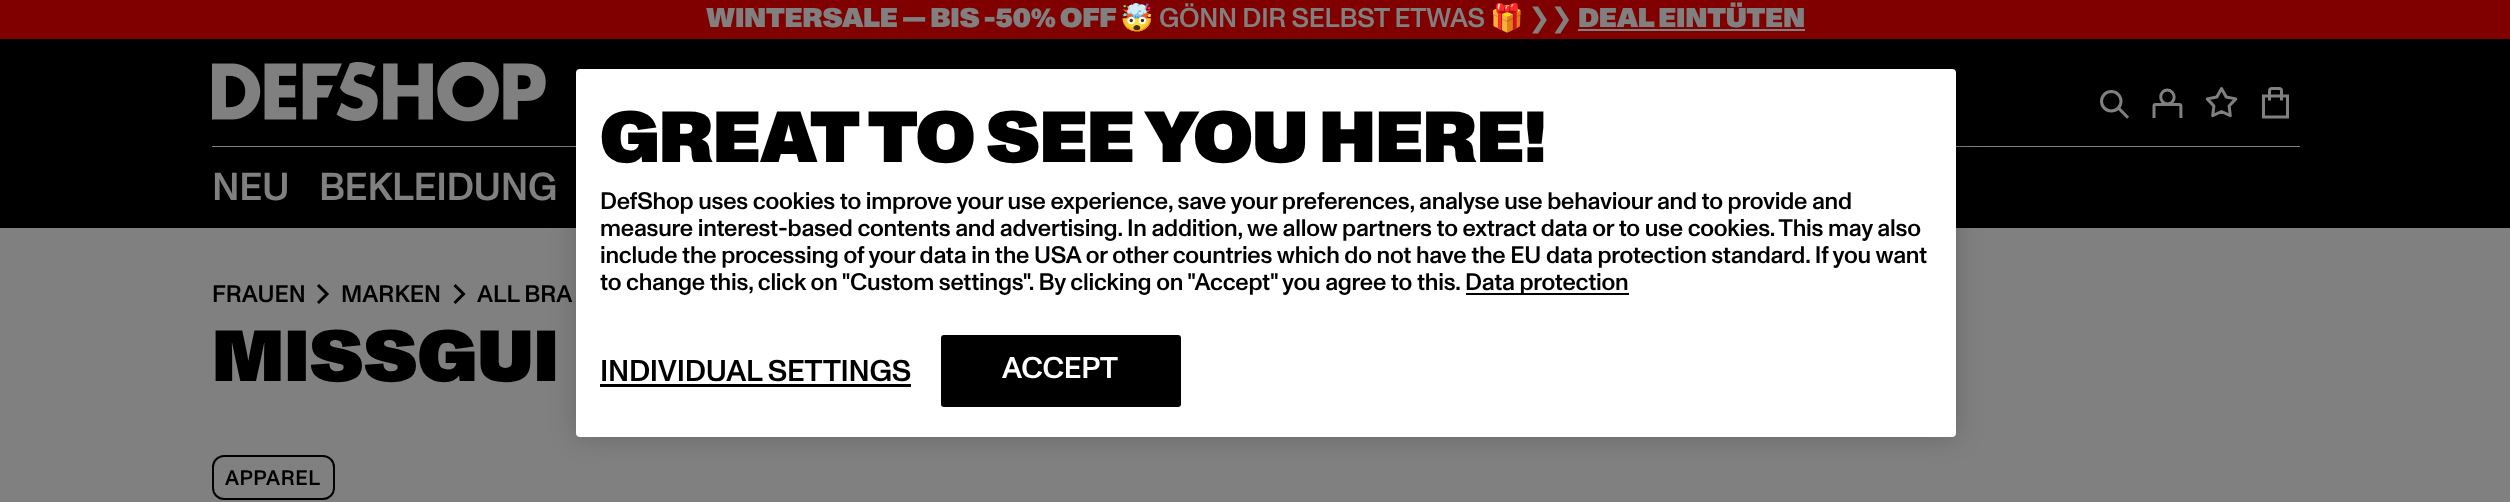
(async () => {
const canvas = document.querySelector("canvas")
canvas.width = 2510
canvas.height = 502
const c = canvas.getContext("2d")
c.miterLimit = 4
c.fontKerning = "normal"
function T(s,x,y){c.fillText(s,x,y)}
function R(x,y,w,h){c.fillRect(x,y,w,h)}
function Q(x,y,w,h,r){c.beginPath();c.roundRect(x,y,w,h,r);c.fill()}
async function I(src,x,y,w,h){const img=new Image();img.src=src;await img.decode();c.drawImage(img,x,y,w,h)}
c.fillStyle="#808080"
R(0,0,2510,502)
c.fillStyle="#800000"
R(0,0,2510,39)
c.letterSpacing="-0.25px"
c.font="900 27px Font"
c.fillStyle="#808080"
T("WINTERSALE — BIS -50% OFF",706,27)
c.font="27px Noto Color Emoji"
T("🤯",1120,27)
c.font="500 27px Font"
T("GÖNN DIR SELBST ETWAS",1159,27)
c.font="27px Noto Color Emoji"
T("🎁",1490,27)
c.font="27px DejaVu Sans"
T("❯❯",1528,27)
c.font="900 27px Font"
T("DEAL EINTÜTEN",1578,27)
R(1578,29,227,2)
c.fillStyle="#000"
R(0,39,2510,189)
c.fillStyle="#808080"
R(212,146,2088,1)
await I("1.png",212,62,334,60)
await I("2.png",2100,90,29,29)
await I("3.png",2152,88,31,30)
await I("4.png",2205,87,33,31)
await I("5.png",2262,87,27,32)
c.letterSpacing="-0.4px"
c.font="500 39px Font"
T("NEU",212,200)
T("BEKLEIDUNG",319,200)
c.letterSpacing="0px"
c.font="500 24px Font"
c.fillStyle="#000"
T("FRAUEN",212,302)
await I("6.png",317,284,12,20)
T("MARKEN",341,302)
await I("7.png",453,284,13,20)
T("ALL BRA",477,302)
c.font="900 72px Font"
T("MISSGUI",212,381)
c.beginPath()
c.roundRect(213,456,121,43,11)
c.strokeStyle="#000"
c.lineWidth=2
c.stroke()
c.letterSpacing="0.5px"
c.font="500 21px Font"
T("APPAREL",225,485)
c.fillStyle="#00000033"
c.filter="blur(13.5px)"
c.beginPath()
c.roundRect(576,69,1380,368,4)
c.fill()
c.filter="none"
c.fillStyle="#fff"
Q(576,69,1380,368,4)
c.letterSpacing="-0.75px"
c.font="900 72px Font"
c.fillStyle="#000"
T("GREAT TO SEE YOU HERE!",600,162)
c.letterSpacing="-0.24px"
c.font="500 24px Font"
T("DefShop uses cookies to improve your use experience, save your preferences, analyse use behaviour and to provide and",600,209)
T("measure interest-based contents and advertising. In addition, we allow partners to extract data or to use cookies. This may also",600,236)
T("include the processing of your data in the USA or other countries which do not have the EU data protection standard. If you want",600,263)
T("to change this, click on \"Custom settings\". By clicking on \"Accept\" you agree to this.",600,290)
R(1466,293,163,2)
T("Data protection",1465,290)
c.letterSpacing="-0.25px"
c.font="500 30px Font"
T("INDIVIDUAL SETTINGS",600,381)
R(600,384,311,3)
Q(941,335,240,72,3)
c.fillStyle="#fff"
T("ACCEPT",1002,378)
})()
